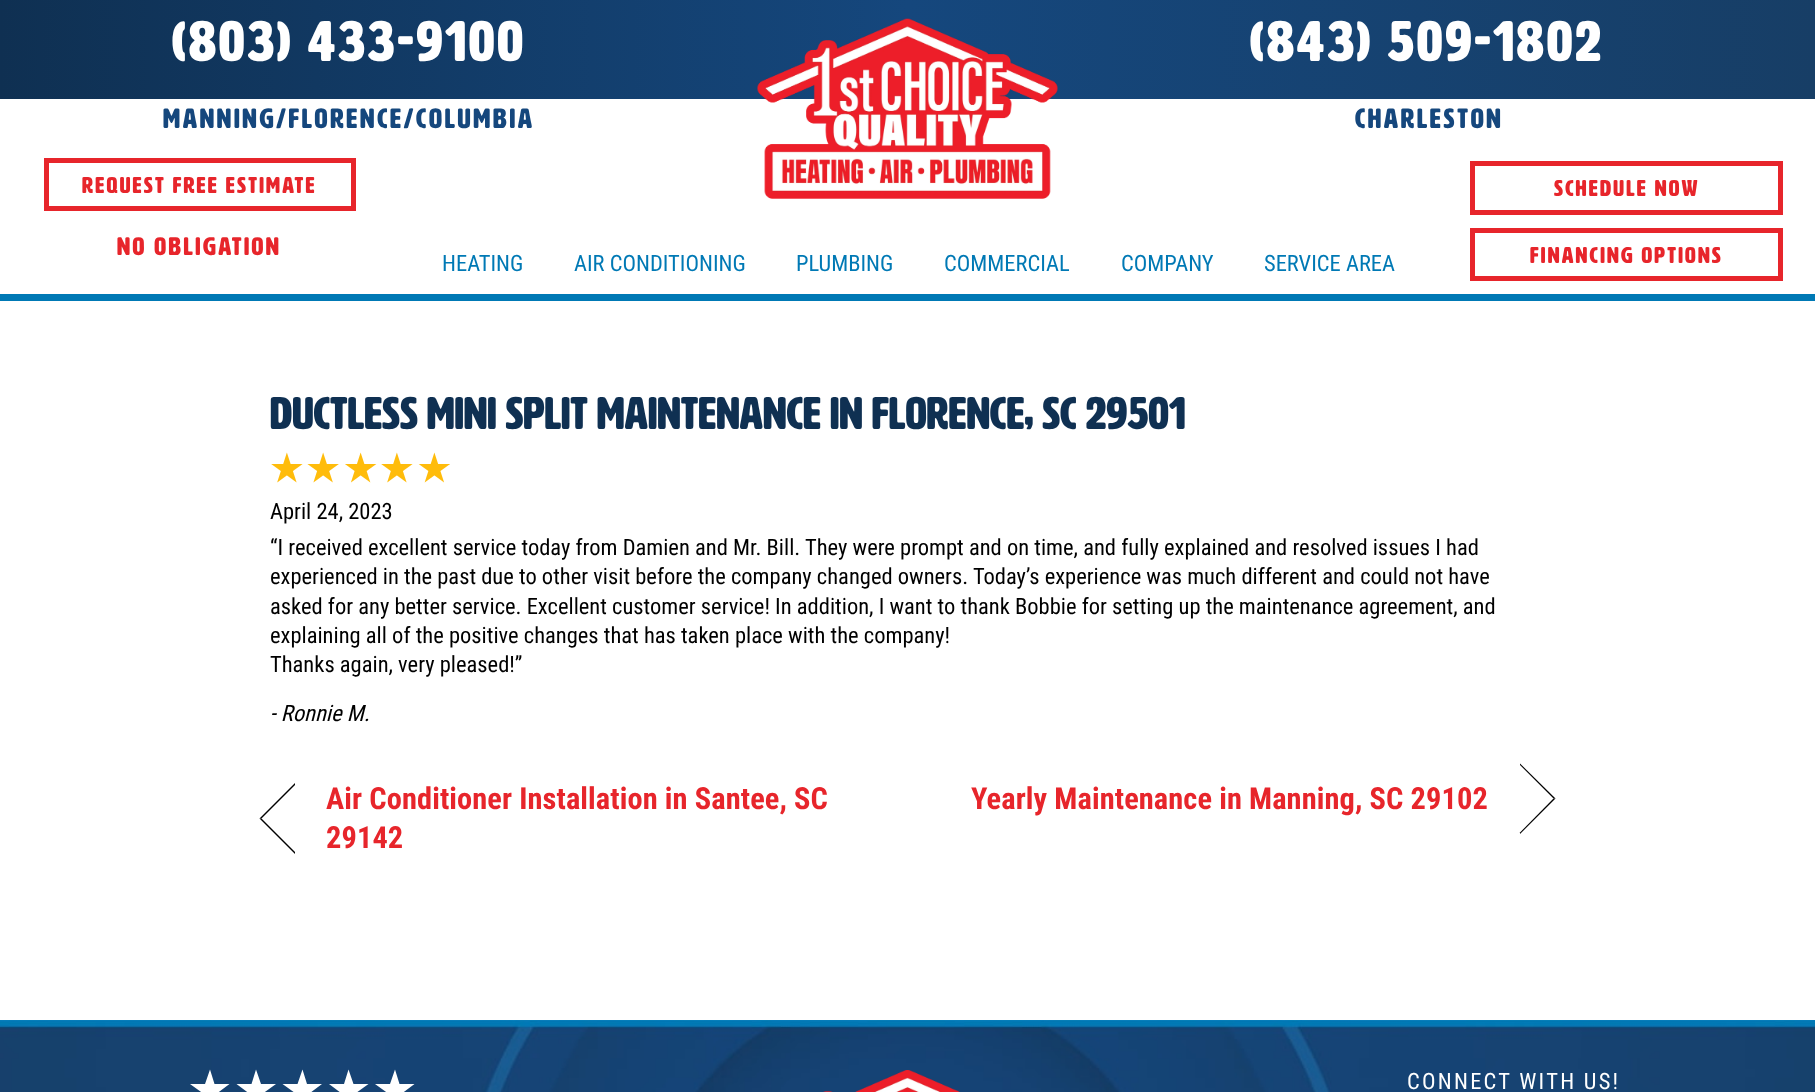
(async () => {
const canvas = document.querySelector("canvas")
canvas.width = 1815
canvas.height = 1092
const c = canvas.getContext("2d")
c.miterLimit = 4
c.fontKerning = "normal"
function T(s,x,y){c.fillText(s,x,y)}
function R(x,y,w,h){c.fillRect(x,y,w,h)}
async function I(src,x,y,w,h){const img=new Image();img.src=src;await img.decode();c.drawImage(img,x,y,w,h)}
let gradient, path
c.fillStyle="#fff"
R(0,0,1815,1092)
c.fillStyle="#0079b5"
R(0,294,1815,7)
gradient = c.createLinearGradient(0,49,1815,49)
gradient.addColorStop(0,"#0f3052")
gradient.addColorStop(.5,"#15477d")
gradient.addColorStop(1,"#173e66")
c.fillStyle = gradient
R(0,0,1815,99)
await I("1.png",757,18,301,181)
c.letterSpacing="2.75px"
c.font="bold 56.25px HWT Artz"
c.fillStyle="#fff"
T("(803) 433-9100",172,61)
T("(843) 509-1802",1250,61)
c.font="bold 27.5px HWT Artz"
c.fillStyle="#15477d"
T("MANNING/FLORENCE/COLUMBIA",163,128)
T("CHARLESTON",1355,128)
c.strokeStyle="#e7252b"
c.lineWidth=5
c.strokeRect(46.5,160.5,307,48)
c.letterSpacing="2.25px"
c.font="bold 22.5px HWT Artz"
c.fillStyle="#e7252b"
T("REQUEST FREE ESTIMATE",82,193)
c.letterSpacing="2.5px"
c.font="bold 25px HWT Artz"
T("NO OBLIGATION",117,255)
c.letterSpacing="0px"
c.font="22.5px Roboto Condensed"
c.fillStyle="#0079b5"
T("HEATING",442,271)
T("AIR CONDITIONING",574,271)
T("PLUMBING",796,271)
T("COMMERCIAL",944,271)
T("COMPANY",1121,271)
T("SERVICE AREA",1264,271)
c.strokeRect(1472.5,163.5,308,49)
c.letterSpacing="2.25px"
c.font="bold 22.5px HWT Artz"
c.fillStyle="#e7252b"
T("SCHEDULE NOW",1554,196)
c.strokeRect(1472.5,230.5,308,48)
T("FINANCING OPTIONS",1530,263)
c.letterSpacing="0px"
c.font="bold 45px HWT Artz"
c.fillStyle="#0f3052"
T("Ductless Mini Split Maintenance in Florence, SC 29501",270,429)
await I("2.png",271,452,32,31)
await I("3.png",307,452,32,31)
await I("4.png",345,452,32,31)
await I("2.png",381,452,32,31)
await I("5.png",418,452,32,31)
c.font="22.5px Roboto Condensed"
c.fillStyle="#000"
T("April 24, 2023",270,519)
T("“I received excellent service today from Damien and Mr. Bill. They were prompt and on time, and fully explained and resolved issues I had",270,555)
T("experienced in the past due to other visit before the company changed owners. Today’s experience was much different and could not have",270,584)
T("asked for any better service. Excellent customer service! In addition, I want to thank Bobbie for setting up the maintenance agreement, and",270,614)
T("explaining all of the positive changes that has taken place with the company!",270,643)
T("Thanks again, very pleased!”",270,672)
c.font="italic 22.5px Roboto Condensed"
T("- Ronnie M.",270,721)
path = new Path2D("M295 854l-35.5-35.5h2l33.5 33.5z")
c.fill(path)
path = new Path2D("M259.5 818.5l35.5-35.5v2l-33.5 33.5z")
c.fill(path)
c.letterSpacing="0.1px"
c.font="bold 30.4px Roboto Condensed"
c.fillStyle="#e7252b"
T("Air Conditioner Installation in Santee, SC",326,809)
T("29142",326,848)
T("Yearly Maintenance in Manning, SC 29102",971,809)
c.fillStyle="#000"
path = new Path2D("M1520 763.5l35.5 35h-2l-33.5-33.5z")
c.fill(path)
path = new Path2D("M1555.5 798.5l-35.5 35.5v-1.5l33.5-34z")
c.fill(path)
await I("6.png",0,1020,1815,72)
c.fillStyle="#fff"
path = new Path2D("M210 1069.5l4.5 14.5l-4.5-14.5l4.5 14.5h15l-12 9l4.5 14l-12-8.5l-12.5 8.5l5-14l-12.5-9h15z")
c.fill(path)
path = new Path2D("M256 1069.5l5 14.5l-5-14.5l5 14.5h15l-12.5 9l5 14l-12.5-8.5l-12 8.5l4.5-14l-12-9h15z")
c.fill(path)
path = new Path2D("M302.5 1069.5l4.5 14.5l-4.5-14.5l4.5 14.5h15l-12 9l4.5 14l-12-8.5l-12.5 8.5l5-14l-12.5-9h15z")
c.fill(path)
path = new Path2D("M348.5 1069.5l5 14.5l-5-14.5l5 14.5h15l-12.5 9l5 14l-12.5-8.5l-12 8.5l4.5-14l-12-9h15z")
c.fill(path)
path = new Path2D("M395 1069.5l4.5 14.5l-4.5-14.5l4.5 14.5h15l-12 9l4.5 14l-12-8.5l-12.5 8.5l5-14l-12.5-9h15z")
c.fill(path)
await I("7.png",823,1070,137,22)
c.letterSpacing="2.25px"
c.font="22.5px Roboto Condensed"
T("CONNECT WITH US!",1407,1089)
})()
